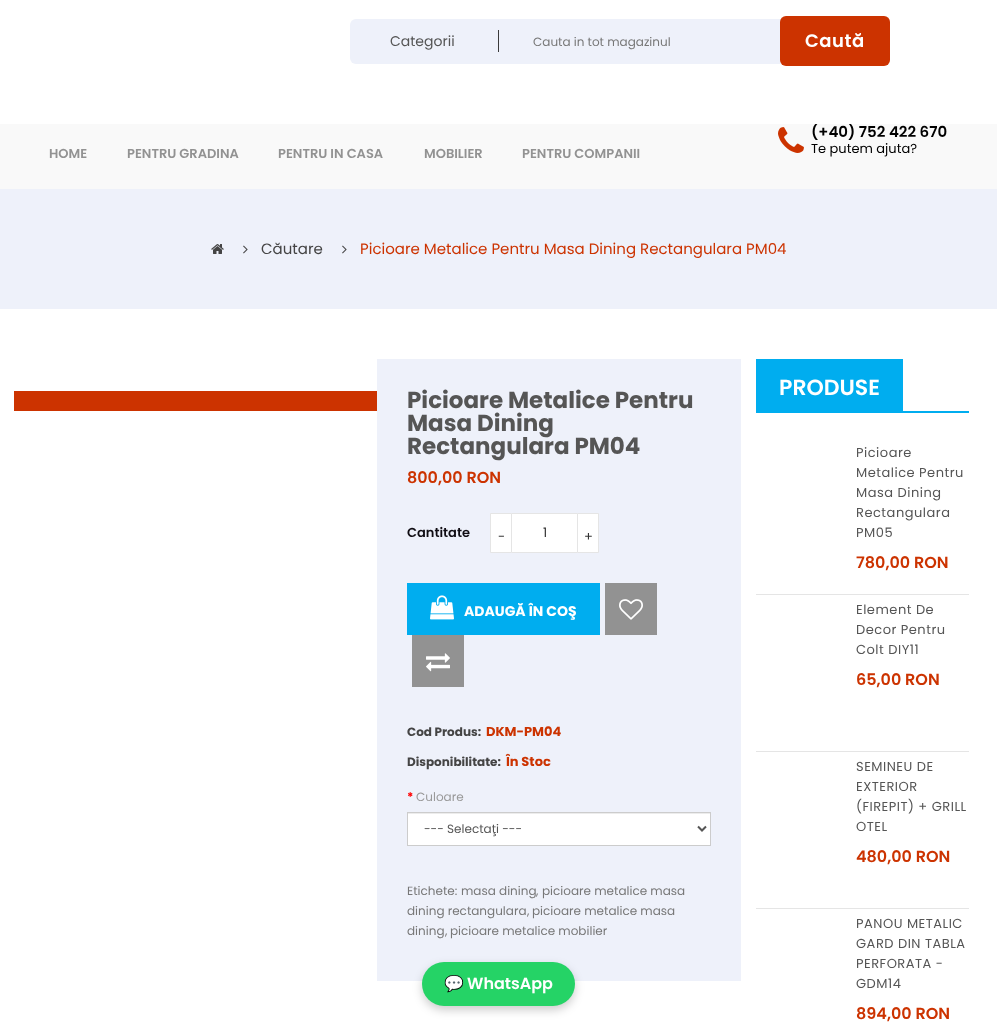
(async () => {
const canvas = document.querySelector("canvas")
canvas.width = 997
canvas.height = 1026
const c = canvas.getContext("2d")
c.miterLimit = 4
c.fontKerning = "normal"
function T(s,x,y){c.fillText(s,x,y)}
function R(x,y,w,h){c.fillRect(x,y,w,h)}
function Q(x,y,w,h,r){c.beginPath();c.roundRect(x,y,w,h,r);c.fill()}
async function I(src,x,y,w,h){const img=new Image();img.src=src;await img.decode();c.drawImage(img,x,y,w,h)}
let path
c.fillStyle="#fff"
R(0,0,997,1026)
c.fillStyle="#f9f9f9"
R(0,124,997,65)
c.font="600 15px Poppins"
c.fillStyle="#000"
T("(+40) 752 422 670",811,137)
c.fillStyle="#fff"
R(814,123,37,1)
c.fillStyle="#eef1fa"
Q(350,19,540,45,6)
c.font="14px Poppins"
c.fillStyle="#555"
T("Categorii",390,46)
c.fillStyle="#3b3b3b"
R(498,30,1,22)
c.font="12px Poppins"
c.fillStyle="#777"
T("Cauta in tot magazinul",533,46)
c.fillStyle="#c30"
Q(780,16,110,50,6)
c.letterSpacing="0.5px"
c.font="600 18px Poppins"
c.fillStyle="#fff"
T("Caută",805,47)
c.letterSpacing="0px"
c.font="600 13px Poppins"
c.fillStyle="#929292"
T("HOME",49,158)
T("PENTRU GRADINA",127,158)
T("PENTRU IN CASA",278,158)
T("MOBILIER",424,158)
T("PENTRU COMPANII",522,158)
await I("1.png",778,127,26,26)
c.font="13px Poppins"
c.fillStyle="#000"
T("Te putem ajuta?",811,153)
c.fillStyle="#eef1fa"
R(0,189,997,120)
await I("2.png",211,244,13,10)
await I("3.png",243,245,5,9)
c.font="15px Poppins"
c.fillStyle="#444"
T("Căutare",261,254)
await I("3.png",342,245,5,9)
c.fillStyle="#c30"
T("Picioare Metalice Pentru Masa Dining Rectangulara PM04",360,254)
R(14,391,363,20)
c.fillStyle="#eef1fa"
R(377,359,364,622)
c.font="bold 23px Poppins"
c.fillStyle="#555"
T("Picioare Metalice Pentru",407,408)
T("Masa Dining",407,431)
T("Rectangulara PM04",407,454)
c.font="600 16px Poppins"
c.fillStyle="#c30"
T("800,00 RON",407,483)
c.font="600 13px Poppins"
c.fillStyle="#100d13"
T("Cantitate",407,537)
c.fillStyle="#fff"
c.beginPath()
c.rect(490.5,513.5,21,39)
c.fill()
c.strokeStyle="#e5e5e5"
c.stroke()
c.font="13px Poppins"
c.fillStyle="#333"
T("-",498,541)
c.fillStyle="#fff"
R(512,514,65,38)
c.fillStyle="#e5e5e5"
R(512,513,65,1)
R(512,552,65,1)
c.fillStyle="#333"
T("1",543,537)
c.fillStyle="#fff"
c.beginPath()
c.rect(577.5,513.5,21,39)
c.fill()
c.stroke()
c.fillStyle="#333"
T("+",584,541)
c.fillStyle="#00adef"
R(407,583,193,52)
await I("4.png",430,595,24,25)
c.font="bold 14px Poppins"
c.fillStyle="#fff"
T("ADAUGĂ ÎN COŞ",464,616)
c.fillStyle="#929292"
R(605,583,52,52)
await I("5.png",619,599,24,21)
R(412,635,52,52)
await I("6.png",426,653,24,19)
c.font="bold 12px Poppins"
c.fillStyle="#444"
T("Cod Produs:",407,736)
c.font="bold 13px Poppins"
c.fillStyle="#c30"
T("DKM-PM04",486,736)
c.font="bold 12px Poppins"
c.fillStyle="#444"
T("Disponibilitate:",407,766)
c.font="bold 13px Poppins"
c.fillStyle="#c30"
T("În Stoc",506,766)
c.font="bold 12px Poppins"
c.fillStyle="#f00"
T("*",407,801)
c.font="12px Poppins"
c.fillStyle="#999"
T("Culoare",416,801)
c.fillStyle="#fff"
R(408,814,302,31)
c.fillStyle="#ececec"
R(408,813,302,1)
c.strokeStyle="#ccc"
c.strokeRect(407.5,812.5,303,33)
path = new Path2D("M698 826.5l4 4l4-4")
c.strokeStyle="#555"
c.lineWidth=2
c.stroke(path)
c.fillStyle="#555"
T("--- Selectaţi ---",424,833)
c.fillStyle="#777"
T("Etichete:",407,895)
T("masa dining",461,895)
T(",",536,895)
T("picioare metalice masa",542,895)
T("dining rectangulara",407,915)
T(",",527,915)
T("picioare metalice masa",532,915)
T("dining",407,935)
T(",",445,935)
T("picioare metalice mobilier",450,935)
c.fillStyle="#00adef"
R(756,411,213,2)
R(756,359,147,52)
c.font="600 22px Poppins"
c.fillStyle="#fff"
T("PRODUSE",779,395)
c.fillStyle="#e5e5e5"
R(756,594,213,1)
c.letterSpacing="0.5px"
c.font="13px Poppins"
c.fillStyle="#555"
T("Picioare",856,457)
T("Metalice Pentru",856,477)
T("Masa Dining",856,497)
T("Rectangulara",856,517)
T("PM05",856,537)
c.letterSpacing="0px"
c.font="600 16px Poppins"
c.fillStyle="#c30"
T("780,00 RON",856,568)
c.fillStyle="#e5e5e5"
R(756,751,213,1)
c.letterSpacing="0.5px"
c.font="13px Poppins"
c.fillStyle="#555"
T("Element De",856,614)
T("Decor Pentru",856,634)
T("Colt DIY11",856,654)
c.letterSpacing="0px"
c.font="600 16px Poppins"
c.fillStyle="#c30"
T("65,00 RON",856,685)
c.fillStyle="#e5e5e5"
R(756,908,213,1)
c.letterSpacing="0.5px"
c.font="13px Poppins"
c.fillStyle="#555"
T("SEMINEU DE",856,771)
T("EXTERIOR",856,791)
T("(FIREPIT) + GRILL",856,811)
T("OTEL",856,831)
c.letterSpacing="0px"
c.font="600 16px Poppins"
c.fillStyle="#c30"
T("480,00 RON",856,862)
c.letterSpacing="0.5px"
c.font="13px Poppins"
c.fillStyle="#555"
T("PANOU METALIC",856,928)
T("GARD DIN TABLA",856,948)
T("PERFORATA -",856,968)
T("GDM14",856,988)
c.letterSpacing="0px"
c.font="600 16px Poppins"
c.fillStyle="#c30"
T("894,00 RON",856,1019)
c.fillStyle="#00000033"
c.filter="blur(5px)"
c.beginPath()
c.roundRect(422,966,153,44,22)
c.fill()
c.filter="none"
c.fillStyle="#25d366"
Q(422,962,153,44,22)
c.font="bold 16px Noto Color Emoji"
c.fillStyle="#fff"
T("💬",444,989)
c.font="600 16px Poppins"
T("WhatsApp",467,989)
})()
